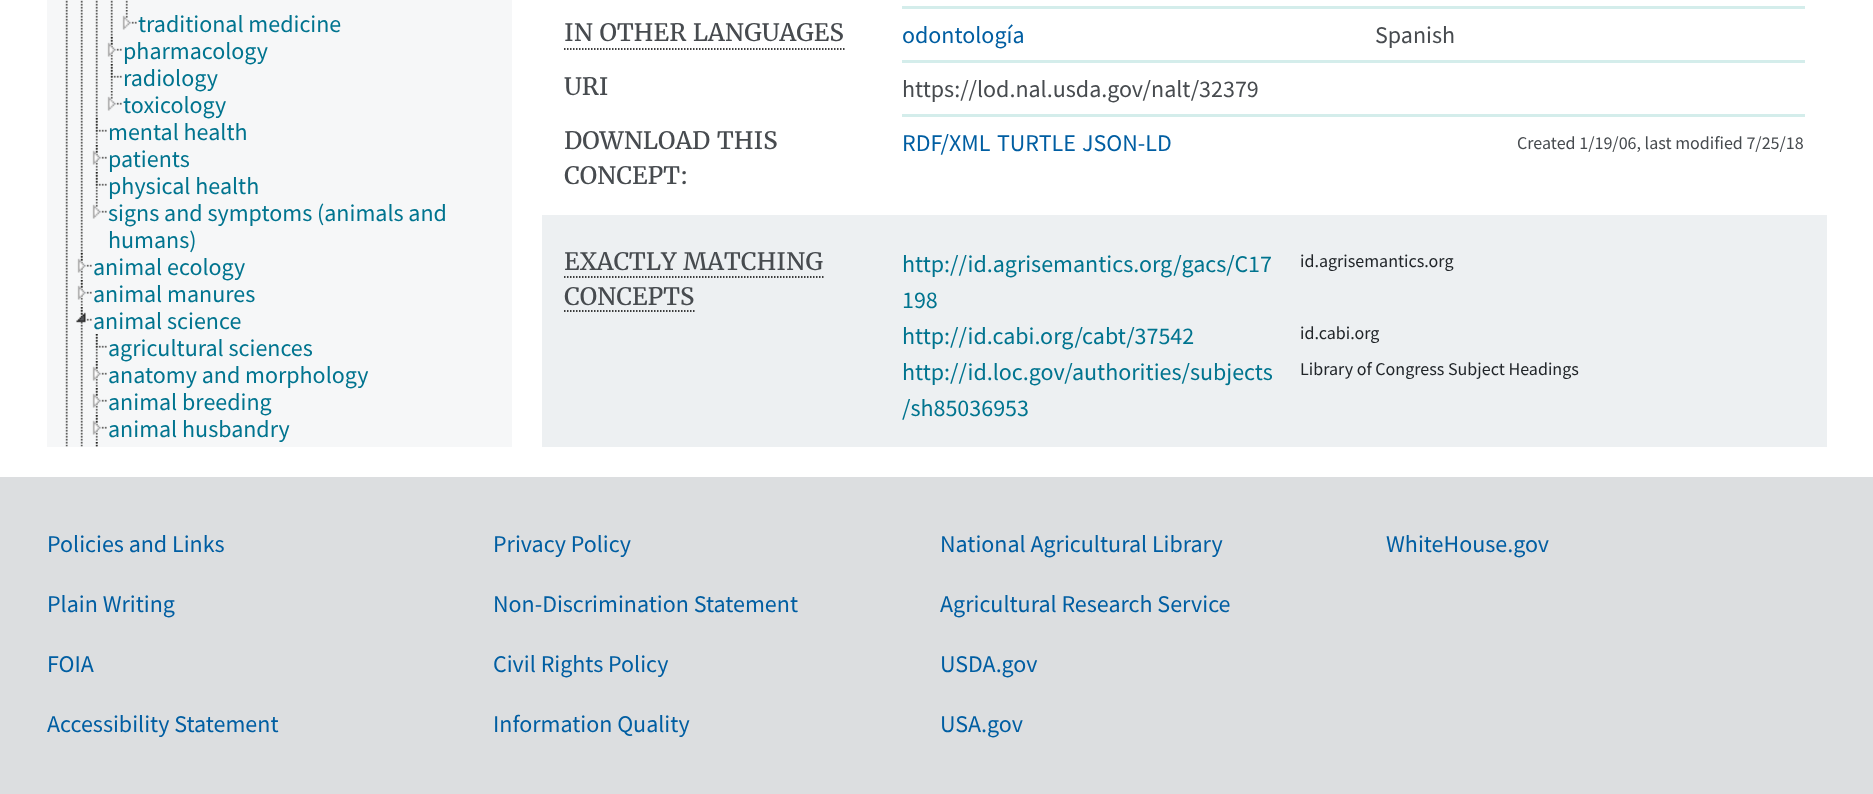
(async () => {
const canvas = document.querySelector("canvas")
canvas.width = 1873
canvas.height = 794
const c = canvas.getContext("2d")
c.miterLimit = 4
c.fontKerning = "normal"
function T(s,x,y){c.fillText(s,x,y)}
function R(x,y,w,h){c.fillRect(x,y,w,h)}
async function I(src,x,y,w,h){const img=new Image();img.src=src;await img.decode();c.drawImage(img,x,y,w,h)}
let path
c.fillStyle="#fff"
R(0,0,1873,794)
c.fillStyle="#f6f7f8"
R(47,0,465,447)
await I("1.png",65,0,3,447)
await I("2.png",80,0,3,253)
await I("3.png",95,0,3,118)
await I("4.png",110,0,3,37)
await I("5.png",125,0,3,9)
await I("6.png",122,10,15,20)
c.font="24px Source Sans Pro"
c.fillStyle="#00748f"
T("traditional medicine",138,32)
await I("7.png",110,37,3,26)
await I("8.png",107,37,15,20)
T("pharmacology",123,59)
await I("7.png",110,64,3,26)
await I("9.png",110,64,12,14)
T("radiology",123,86)
await I("6.png",107,91,15,20)
T("toxicology",123,113)
await I("7.png",95,118,3,26)
await I("9.png",95,118,12,14)
T("mental health",108,140)
await I("7.png",95,145,3,26)
await I("8.png",92,145,15,20)
T("patients",108,167)
await I("7.png",95,172,3,26)
await I("9.png",95,172,12,14)
T("physical health",108,194)
await I("6.png",92,199,15,20)
T("signs and symptoms (animals and",108,221)
T("humans)",108,248)
await I("7.png",80,253,3,26)
await I("8.png",77,253,15,20)
T("animal ecology",93,275)
await I("7.png",80,280,3,26)
await I("8.png",77,280,15,20)
T("animal manures",93,302)
await I("10.png",80,307,3,140)
await I("11.png",76,307,16,16)
T("animal science",93,329)
await I("7.png",95,334,3,26)
await I("9.png",95,334,12,14)
T("agricultural sciences",108,356)
await I("7.png",95,361,3,26)
await I("8.png",92,361,15,20)
T("anatomy and morphology",108,383)
await I("7.png",95,388,3,26)
await I("8.png",92,388,15,20)
T("animal breeding",108,410)
await I("7.png",95,415,3,26)
await I("8.png",92,415,15,20)
T("animal husbandry",108,437)
await I("12.png",95,442,3,5)
await I("13.png",95,442,3,5)
c.fillStyle="#d4edeb"
R(902,6,903,3)
c.font="24px Merriweather"
c.fillStyle="#474b4f"
T("IN OTHER LANGUAGES",564,41)
path = new Path2D("M564 49h280.5")
c.strokeStyle="#000"
c.lineWidth=1.5
c.setLineDash([1.5,1.5])
c.stroke(path)
c.fillStyle="#d4edeb"
R(902,60,903,3)
c.font="24px Source Sans Pro"
c.fillStyle="#005ea2"
T("odontología",902,43)
c.fillStyle="#474b4f"
T("Spanish",1375,43)
c.font="24px Merriweather"
T("URI",564,95)
c.fillStyle="#d4edeb"
R(902,114,903,3)
c.font="24px Source Sans Pro"
c.fillStyle="#474b4f"
T("https://lod.nal.usda.gov/nalt/32379",902,97)
c.font="24px Merriweather"
T("DOWNLOAD THIS",564,149)
T("CONCEPT:",564,184)
c.font="24px Source Sans Pro"
c.fillStyle="#005ea2"
T("RDF/XML",902,151)
T("TURTLE",997,151)
T("JSON-LD",1082,151)
c.font="18px Source Sans Pro"
c.fillStyle="#474b4f"
T("Created 1/19/06, last modified 7/25/18",1517,149)
c.fillStyle="#edf0f2"
R(542,215,1285,232)
c.font="24px Merriweather"
c.fillStyle="#474b4f"
T("EXACTLY MATCHING",564,270)
path = new Path2D("M564 277h259.5")
c.stroke(path)
T("CONCEPTS",564,305)
path = new Path2D("M564 311h130.5")
c.stroke(path)
c.font="24px Source Sans Pro"
c.fillStyle="#00748f"
T("http://id.agrisemantics.org/gacs/C17",902,272)
T("198",902,308)
c.font="18px Source Sans Pro"
c.fillStyle="#212529"
T("id.agrisemantics.org",1300,267)
c.font="24px Source Sans Pro"
c.fillStyle="#00748f"
T("http://id.cabi.org/cabt/37542",902,344)
c.font="18px Source Sans Pro"
c.fillStyle="#212529"
T("id.cabi.org",1300,339)
c.font="24px Source Sans Pro"
c.fillStyle="#00748f"
T("http://id.loc.gov/authorities/subjects",902,380)
T("/sh85036953",902,416)
c.font="18px Source Sans Pro"
c.fillStyle="#212529"
T("Library of Congress Subject Headings",1300,375)
c.fillStyle="#dcdee0"
R(0,477,1873,317)
c.font="24px Source Sans Pro"
c.fillStyle="#005ea2"
T("Policies and Links",47,552)
T("Privacy Policy",493,552)
T("National Agricultural Library",940,552)
T("WhiteHouse.gov",1386,552)
T("Plain Writing",47,612)
T("Non-Discrimination Statement",493,612)
T("Agricultural Research Service",940,612)
T("FOIA",47,672)
T("Civil Rights Policy",493,672)
T("USDA.gov",940,672)
T("Accessibility Statement",47,732)
T("Information Quality",493,732)
T("USA.gov",940,732)
})()
